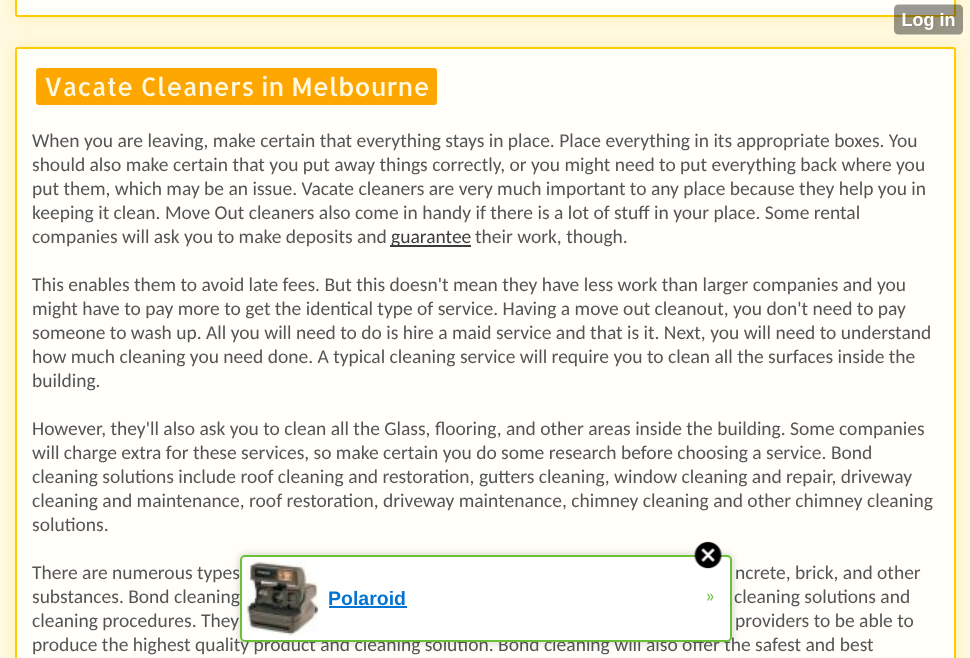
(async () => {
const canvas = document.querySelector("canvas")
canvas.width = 970
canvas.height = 658
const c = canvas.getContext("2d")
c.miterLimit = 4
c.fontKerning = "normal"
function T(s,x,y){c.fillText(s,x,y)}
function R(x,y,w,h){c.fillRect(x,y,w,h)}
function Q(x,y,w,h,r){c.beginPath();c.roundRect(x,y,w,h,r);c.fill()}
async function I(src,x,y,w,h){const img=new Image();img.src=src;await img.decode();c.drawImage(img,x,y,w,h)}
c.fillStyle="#fff9e1"
R(0,0,970,658)
c.fillStyle="#ffefae"
c.filter="blur(7.5px)"
c.beginPath()
c.roundRect(15,-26,941,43,3)
c.fill()
c.filter="none"
c.fillStyle="#fffef9"
c.beginPath()
c.roundRect(16,-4,939,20,2)
c.fill()
c.strokeStyle="#fc0"
c.lineWidth=2
c.stroke()
c.fillStyle="#ffefae"
c.filter="blur(7.5px)"
c.beginPath()
c.roundRect(15,47,941,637,3)
c.fill()
c.filter="none"
await I("1.png",894,4,69,31)
c.fillStyle="#fffef9"
c.beginPath()
c.roundRect(16,48,939,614,2)
c.fill()
c.stroke()
c.fillStyle="#fea700"
Q(36,68,401,37,3)
c.font="25.5px Allerta"
c.fillStyle="#fff9e1"
T("Vacate Cleaners in Melbourne",44,96)
c.font="19.5px Carlito"
c.fillStyle="#555"
T("When you are leaving, make certain that everything stays in place. Place everything in its appropriate boxes. You",32,147)
T("should also make certain that you put away things correctly, or you might need to put everything back where you",32,171)
T("put them, which may be an issue. Vacate cleaners are very much important to any place because they help you in",32,195)
T("keeping it clean. Move Out cleaners also come in handy if there is a lot of stuff in your place. Some rental",32,219)
T("companies will ask you to make deposits and",32,243)
c.fillStyle="#3c3c3c"
R(390,245,81,2)
T("guarantee",391,243)
c.fillStyle="#555"
T("their work, though.",475,243)
T("This enables them to avoid late fees. But this doesn't mean they have less work than larger companies and you",32,291)
T("might have to pay more to get the identical type of service. Having a move out cleanout, you don't need to pay",32,315)
T("someone to wash up. All you will need to do is hire a maid service and that is it. Next, you will need to understand",32,339)
T("how much cleaning you need done. A typical cleaning service will require you to clean all the surfaces inside the",32,363)
T("building.",32,387)
T("However, they'll also ask you to clean all the Glass, flooring, and other areas inside the building. Some companies",32,435)
T("will charge extra for these services, so make certain you do some research before choosing a service. Bond",32,459)
T("cleaning solutions include roof cleaning and restoration, gutters cleaning, window cleaning and repair, driveway",32,483)
T("cleaning and maintenance, roof restoration, driveway maintenance, chimney cleaning and other chimney cleaning",32,507)
T("solutions.",32,531)
T("There are numerous types",32,579)
T("ncrete, brick, and other",735,579)
T("substances. Bond cleaning",32,603)
T("cleaning solutions and",734,603)
T("cleaning procedures. They",32,627)
T("providers to be able to",735,627)
T("produce the highest quality product and cleaning solution. Bond cleaning will also offer the safest and best",32,651)
c.fillStyle="#00000033"
c.filter="blur(4px)"
c.beginPath()
c.roundRect(240,555,492,87,5)
c.fill()
c.filter="none"
c.fillStyle="#fff"
c.beginPath()
c.roundRect(241,556,490,85,4)
c.fill()
c.strokeStyle="#6bc135"
c.stroke()
await I("2.png",694,541,28,28)
await I("3.png",246,561,73,75)
c.font="bold 19.5px Liberation Sans"
c.fillStyle="#0274d4"
T("Polaroid",328,605)
R(329,606,78,2)
c.font="19.5px Carlito"
c.fillStyle="#6bc135"
T("»",705,602)
})()
